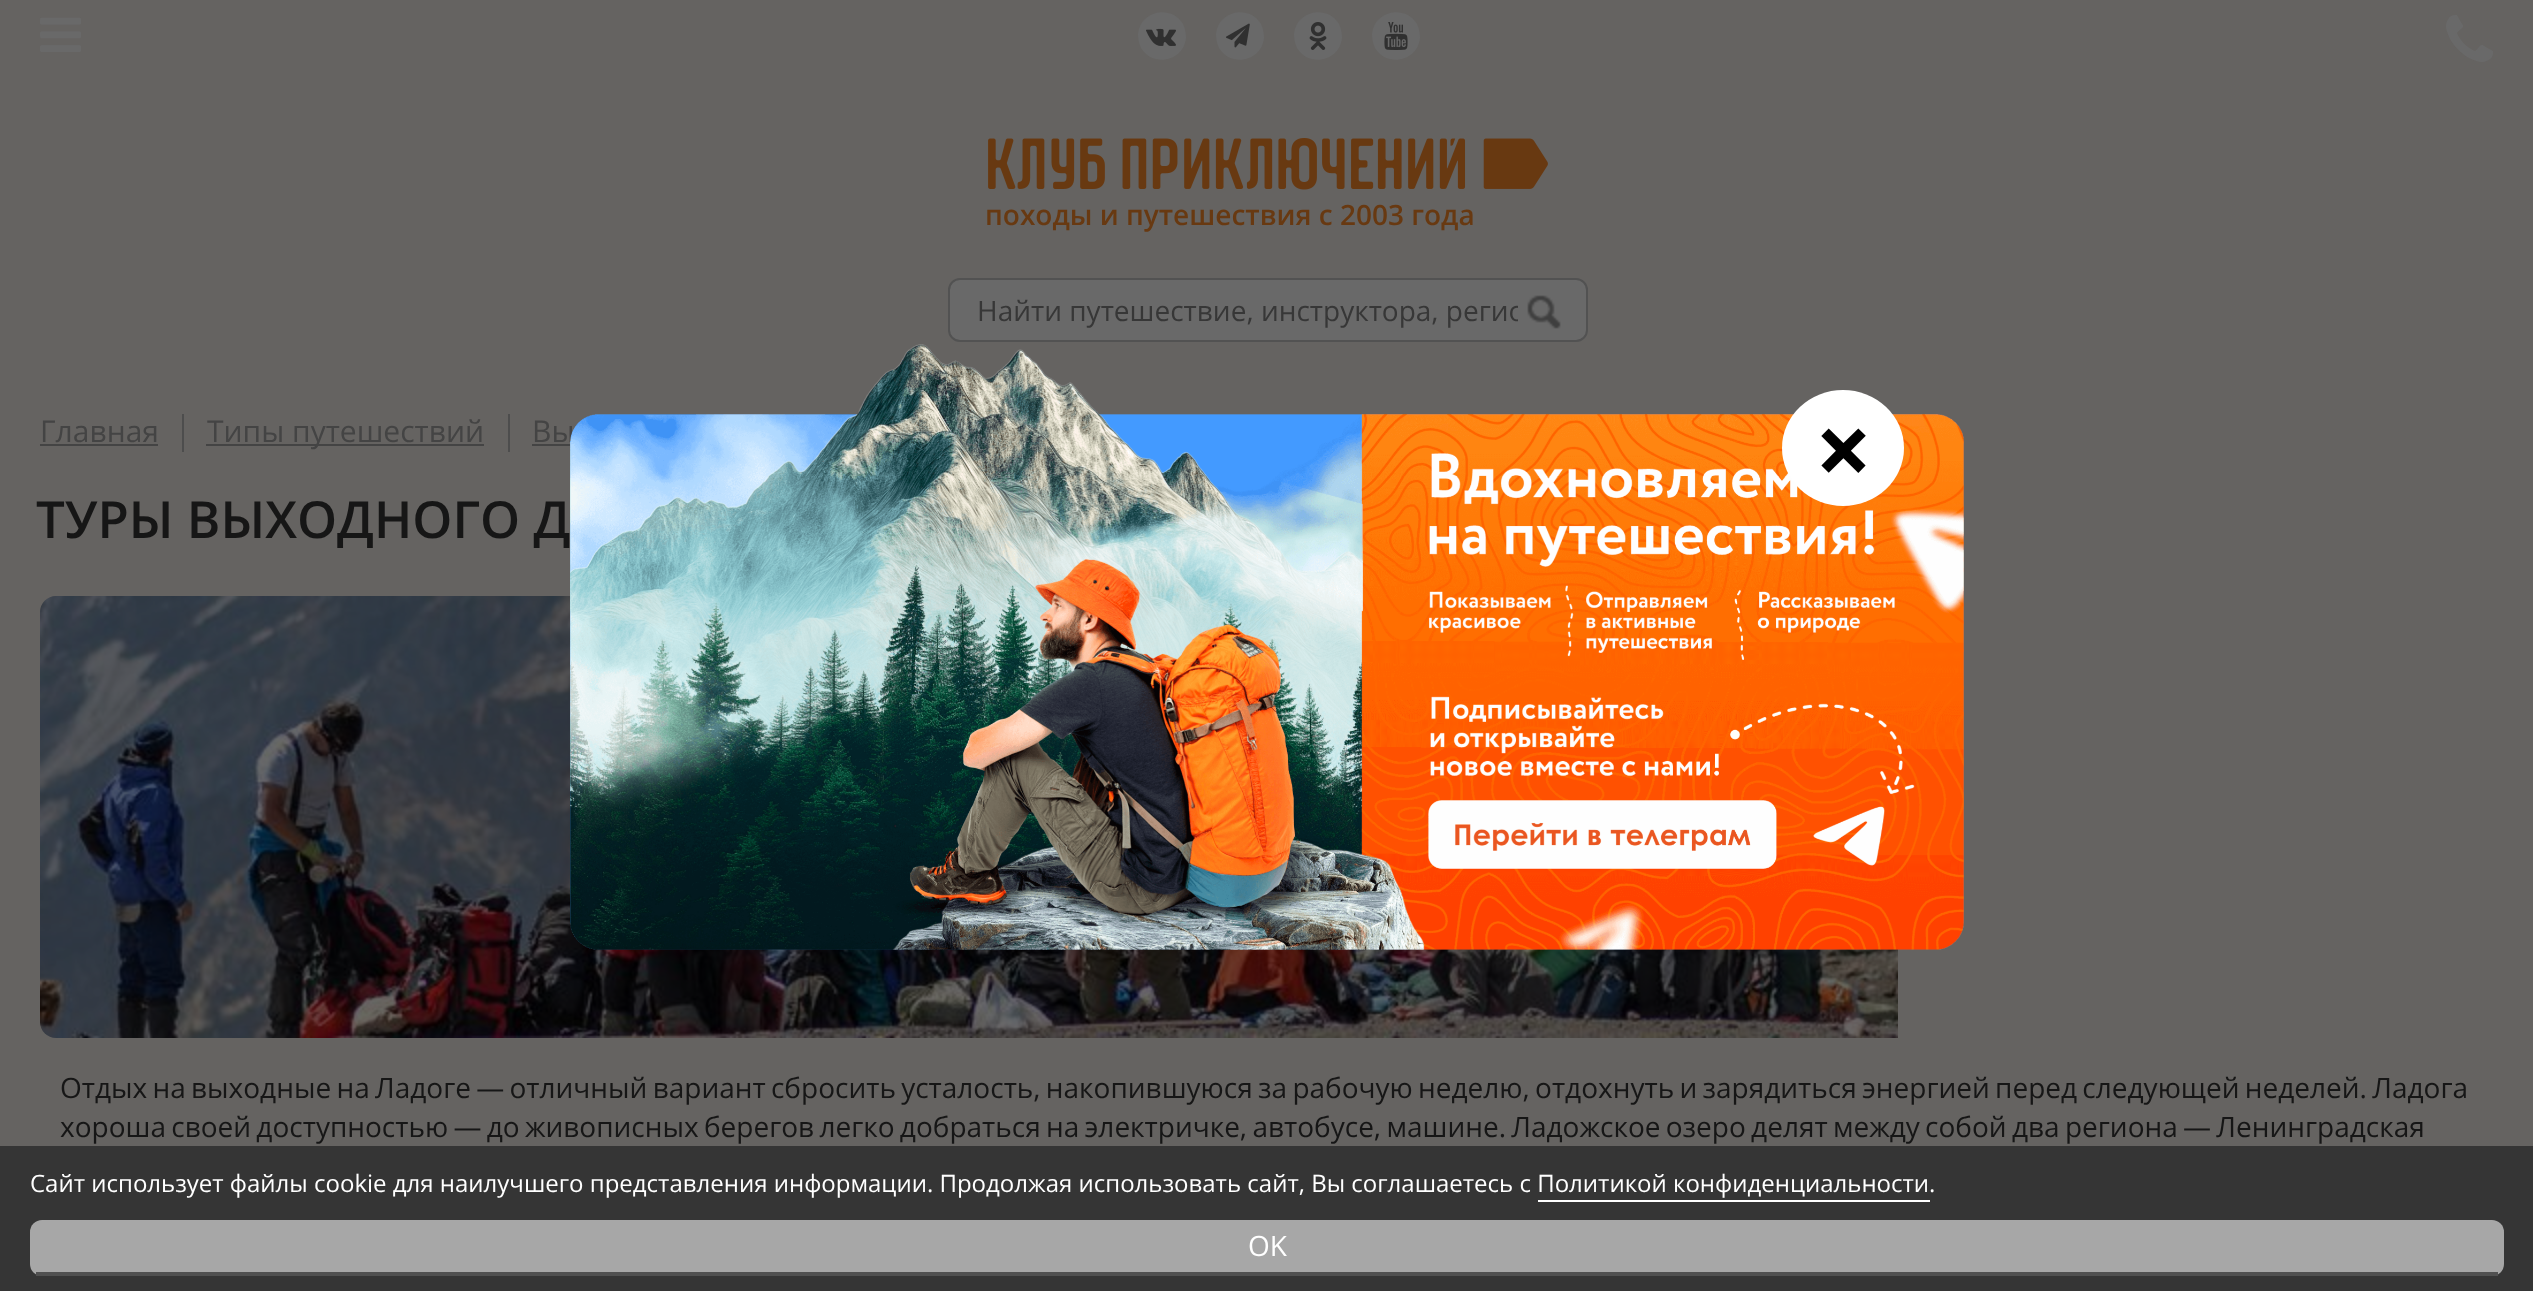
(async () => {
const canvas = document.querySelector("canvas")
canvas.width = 2533
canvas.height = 1291
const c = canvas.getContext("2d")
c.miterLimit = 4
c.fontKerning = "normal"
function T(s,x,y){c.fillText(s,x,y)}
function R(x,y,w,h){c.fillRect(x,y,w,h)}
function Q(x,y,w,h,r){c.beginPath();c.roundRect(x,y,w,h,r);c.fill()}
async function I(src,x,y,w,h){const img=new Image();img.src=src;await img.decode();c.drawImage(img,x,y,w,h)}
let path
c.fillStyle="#656361"
R(0,0,2533,1291)
await I("1.png",40,17,41,35)
c.fillStyle="#696969"
path = new Path2D("M1183 24c2 4 3 9 3 14c-2 23-33 30-45 10c-2-4-3-9-3-14c2-23 33-30 45-10z")
c.fill(path)
await I("2.png",1146,28,30,18)
path = new Path2D("M1261 24c2 4 3 9 3 14c-2 23-33 30-45 10c-2-4-3-9-3-14c2-23 33-30 45-10z")
c.fill(path)
await I("3.png",1226,23,24,25)
path = new Path2D("M1339 24c2 4 3 9 3 14c-2 23-33 30-45 10c-2-4-3-9-3-14c2-23 33-30 45-10z")
c.fill(path)
await I("4.png",1309,22,18,28)
path = new Path2D("M1417 24c2 4 3 9 3 14c-2 23-33 30-45 10c-2-4-3-9-3-14c2-23 33-30 45-10z")
c.fill(path)
await I("5.png",1384,22,24,28)
await I("6.png",2446,15,47,47)
await I("7.png",988,138,560,52)
c.font="600 28px Open Sans"
c.fillStyle="#683911"
T("походы и путешествия с 2003 года",985,225)
c.fillStyle="#696969"
c.beginPath()
c.roundRect(949,279,638,62,11)
c.fill()
c.strokeStyle="#525252"
c.lineWidth=2
c.stroke()
c.save()
c.beginPath()
c.rect(978,288,540,42)
c.clip()
c.font="28px Open Sans"
c.fillStyle="#373737"
T("Найти путешествие, инструктора, регио",977,321)
c.restore()
await I("8.png",1527,295,34,34)
c.fillStyle="#4d4d4d"
R(182,414,2,38)
c.font="30px Open Sans"
c.fillStyle="#444"
T("Главная",40,442)
R(40,444,118,2)
c.fillStyle="#4d4d4d"
R(508,414,2,38)
c.fillStyle="#444"
R(206,444,278,2)
T("Типы путешествий",207,442)
T("Вы",532,442)
R(532,444,38,2)
c.font="600 51px Open Sans"
c.fillStyle="#161616"
T("ТУРЫ ВЫХОДНОГО Д",36,538)
await I("9.png",40,596,1858,442)
c.wordSpacing="-2px"
c.font="28px Open Sans"
T("Отдых на выходные на Ладоге — отличный вариант сбросить усталость, накопившуюся за рабочую неделю, отдохнуть и зарядиться энергией перед следующей неделей. Ладога",60,1098)
T("хороша своей доступностью — до живописных берегов легко добраться на электричке, автобусе, машине. Ладожское озеро делят между собой два региона — Ленинградская",60,1137)
await I("10.png",570,344,1394,606)
c.fillStyle="#fff"
c.beginPath()
c.ellipse(1843,448,61,58,0,0,7)
c.fill()
c.wordSpacing="0px"
c.font="bold 100px Open Sans"
c.fillStyle="#000"
T("×",1815,486)
c.fillStyle="#353535"
R(0,1146,2533,145)
c.font="24px Open Sans"
c.fillStyle="#fff"
T("Сайт использует файлы cookie для наилучшего представления информации. Продолжая использовать сайт, Вы соглашаетесь с Политикой конфиденциальности.",30,1192)
R(1538,1200,392,2)
c.fillStyle="#a7a7a7"
Q(30,1220,2474,56,12)
c.fillStyle="#505050"
R(36,1272,2462,4)
c.font="28px Open Sans"
c.fillStyle="#fff"
T("OK",1248,1256)
})()
